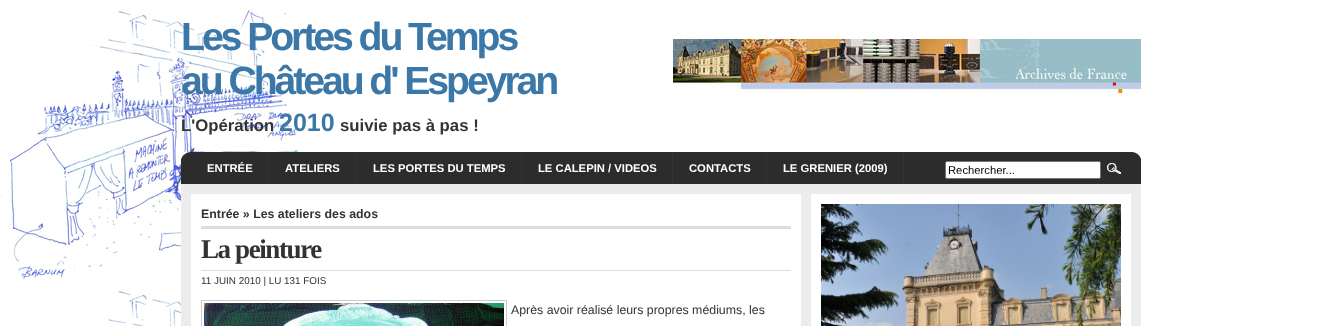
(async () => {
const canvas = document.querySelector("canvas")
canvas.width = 1322
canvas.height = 326
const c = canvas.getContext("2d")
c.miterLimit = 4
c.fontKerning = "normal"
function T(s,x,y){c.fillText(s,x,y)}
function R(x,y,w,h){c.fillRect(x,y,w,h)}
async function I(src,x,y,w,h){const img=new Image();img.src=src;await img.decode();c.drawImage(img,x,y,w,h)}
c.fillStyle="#fff"
R(0,0,1322,326)
await I("1.png",0,7,299,319)
c.letterSpacing="-3.1px"
c.font="bold 39.25px Liberation Sans"
c.fillStyle="#3c78a7"
T("Les Portes du Temps",181,50)
T("au Château d' Espeyran",181,94)
c.letterSpacing="0px"
c.font="bold 16.75px Liberation Sans"
c.fillStyle="#333"
T("L'Opération",181,131)
c.font="bold 25px Liberation Sans"
c.fillStyle="#3c78a7"
T("2010",279,131)
c.font="bold 16.75px Liberation Sans"
c.fillStyle="#333"
T("suivie pas à pas !",340,131)
await I("2.png",673,39,468,56)
c.fillStyle="#2c2c2c"
R(181,160,960,24)
await I("3.png",181,152,960,8)
c.fillStyle="#333"
R(268,152,1,32)
c.font="bold 11.25px Liberation Sans"
c.fillStyle="#fff"
T("ENTRÉE",207,172)
c.fillStyle="#333"
R(356,152,1,32)
c.fillStyle="#fff"
T("ATELIERS",285,172)
c.fillStyle="#333"
R(521,152,1,32)
c.fillStyle="#fff"
T("LES PORTES DU TEMPS",373,172)
c.fillStyle="#333"
R(672,152,1,32)
c.fillStyle="#fff"
T("LE CALEPIN / VIDEOS",538,172)
c.fillStyle="#333"
R(766,152,1,32)
c.fillStyle="#fff"
T("CONTACTS",689,172)
c.fillStyle="#333"
R(903,152,1,32)
c.fillStyle="#fff"
T("LE GRENIER (2009)",783,172)
c.beginPath()
c.roundRect(945.5,161.5,155,17,1.5)
c.fill()
c.strokeStyle="#767676"
c.stroke()
c.font="11.25px Liberation Sans"
c.fillStyle="#000"
T("Rechercher...",948,174)
await I("4.png",1107,163,14,11)
c.fillStyle="#ececec"
R(181,184,960,142)
c.fillStyle="#fff"
R(191,194,610,132)
c.font="bold 12.35px Liberation Sans"
c.fillStyle="#333"
T("Entrée » Les ateliers des ados",201,218)
c.fillStyle="#ddd"
R(201,226,590,3)
R(201,270,590,1)
c.letterSpacing="-1.4px"
c.font="bold 27px Liberation Serif"
c.fillStyle="#333"
T("La peinture",201,258)
c.letterSpacing="0px"
c.font="9.9px Liberation Sans"
T("11 JUIN 2010 | LU 131 FOIS",201,284)
c.strokeStyle="#ccc"
c.strokeRect(201.5,300.5,305,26)
await I("5.png",204,303,300,23)
c.font="12.35px Liberation Sans"
T("Après avoir réalisé leurs propres médiums, les",511,314)
c.fillStyle="#fff"
R(811,194,320,132)
await I("6.png",821,204,300,122)
})()
